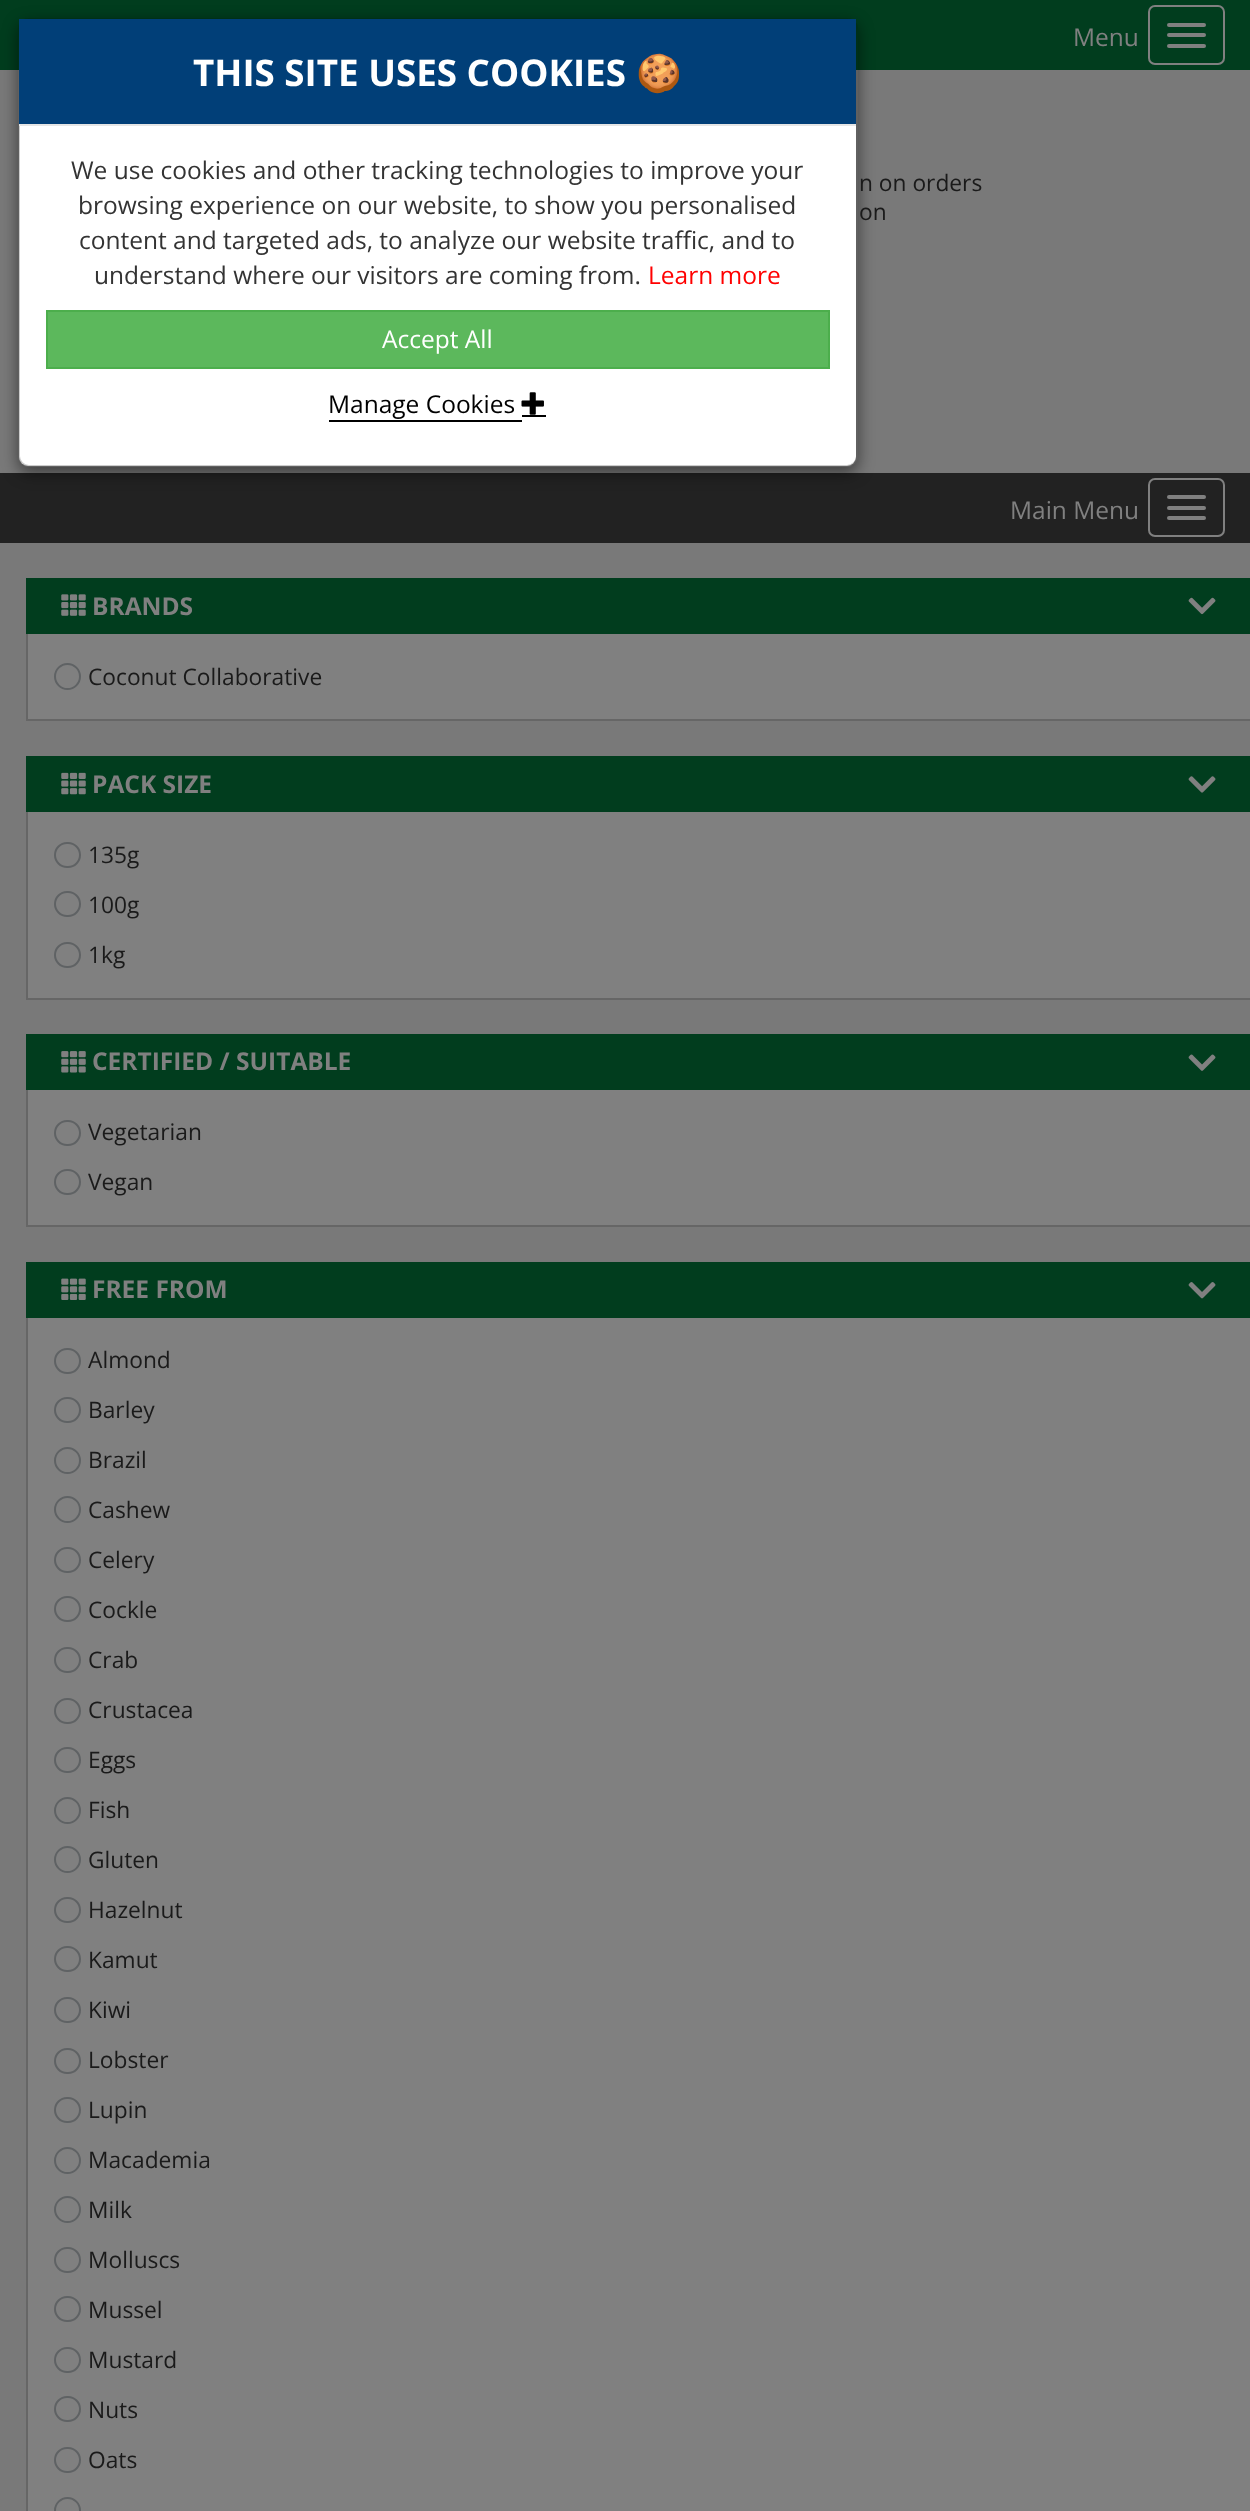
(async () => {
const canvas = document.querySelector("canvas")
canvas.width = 1250
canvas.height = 2511
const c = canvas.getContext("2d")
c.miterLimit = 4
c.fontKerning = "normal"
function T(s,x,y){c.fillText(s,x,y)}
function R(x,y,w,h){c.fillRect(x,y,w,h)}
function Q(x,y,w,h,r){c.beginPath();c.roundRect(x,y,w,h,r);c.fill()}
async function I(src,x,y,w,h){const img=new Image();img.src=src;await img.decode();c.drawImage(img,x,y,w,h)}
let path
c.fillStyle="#797979"
R(0,0,1250,2511)
c.fillStyle="#013d1e"
R(0,0,1250,70)
c.font="24.5px Open Sans"
c.fillStyle="#808080"
T("Menu",1073,46)
c.beginPath()
c.roundRect(1149,6,75,58,6)
c.strokeStyle="#808080"
c.lineWidth=2
c.stroke()
Q(1167,23,39,4,2)
Q(1167,33,39,4,2)
Q(1167,44,39,4,2)
c.fillStyle="#222"
R(0,473,1250,70)
c.save()
path = new Path2D("M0 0h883v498h-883zm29 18h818c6 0 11 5 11 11v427c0 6-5 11-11 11h-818c-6 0-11-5-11-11v-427c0-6 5-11 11-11z")
c.clip(path,"evenodd")
c.fillStyle="#00000080"
c.filter="blur(8px)"
c.beginPath()
c.roundRect(18,23,840,450,11)
c.fill()
c.filter="none"
c.restore()
c.fillStyle="#fff"
Q(19,19,837,447,9)
c.beginPath()
c.roundRect(19,19,838,447,10)
c.strokeStyle="#00000033"
c.stroke()
c.fillStyle="#013f78"
R(19,19,837,105)
c.fillStyle="#e5e5e5"
R(19,124,837,2)
c.font="bold 36.75px Open Sans"
c.fillStyle="#fff"
T("THIS SITE USES COOKIES",193,86)
c.font="bold 36.75px Noto Color Emoji"
T("🍪",636,86)
c.font="24.5px Open Sans"
c.fillStyle="#333"
T("We use cookies and other tracking technologies to improve your",71,179)
T("browsing experience on our website, to show you personalised",78,214)
T("content and targeted ads, to analyze our website traffic, and to",79,249)
T("understand where our visitors are coming from.",94,284)
c.fillStyle="#f00"
T("Learn more",648,284)
c.fillStyle="#5cb85c"
c.beginPath()
c.rect(47,311,782,57)
c.fill()
c.strokeStyle="#4cae4c"
c.stroke()
c.fillStyle="#fff"
T("Accept All",382,348)
c.fillStyle="#000"
R(329,420,193,2)
R(522,415,24,2)
T("Manage Cookies",328,413)
await I("1.png",521,392,23,23)
c.font="22.75px Open Sans"
c.fillStyle="#1a1a1a"
T("n on orders",859,191)
T("on",859,220)
c.font="24.5px Open Sans"
c.fillStyle="#808080"
T("Main Menu",1010,519)
c.beginPath()
c.roundRect(1149,479,75,57,6)
c.strokeStyle="#808080"
c.stroke()
Q(1167,495,39,4,2)
Q(1167,506,39,4,2)
Q(1167,516,39,4,2)
c.fillStyle="#013d1e"
R(26,578,1224,56)
await I("2.png",61,594,25,22)
c.font="bold 24.5px Open Sans"
c.fillStyle="#808080"
T("BRANDS",92,615)
await I("3.png",1188,597,28,18)
R(28,634,1222,85)
c.fillStyle="#666"
R(26,719,1224,2)
R(26,634,2,87)
c.beginPath()
c.arc(67.5,676.5,12.5,0,7)
c.strokeStyle="#5f6264"
c.stroke()
c.font="22.75px Open Sans"
c.fillStyle="#1a1a1a"
T("Coconut Collaborative",88,685)
c.fillStyle="#013d1e"
R(26,756,1224,56)
await I("4.png",61,772,25,23)
c.font="bold 24.5px Open Sans"
c.fillStyle="#808080"
T("PACK SIZE",92,793)
await I("5.png",1188,776,28,17)
R(28,812,1222,186)
c.fillStyle="#666"
R(26,998,1224,2)
R(26,812,2,187)
c.beginPath()
c.roundRect(55,843,25,24,12)
c.stroke()
c.font="22.75px Open Sans"
c.fillStyle="#1a1a1a"
T("135g",88,863)
c.beginPath()
c.roundRect(55,892,25,24,12)
c.stroke()
T("100g",88,913)
c.beginPath()
c.roundRect(55,943,25,24,12)
c.stroke()
T("1kg",88,963)
c.fillStyle="#013d1e"
R(26,1034,1224,56)
await I("6.png",61,1051,25,22)
c.font="bold 24.5px Open Sans"
c.fillStyle="#808080"
T("CERTIFIED / SUITABLE",92,1070)
await I("7.png",1188,1054,28,17)
R(28,1090,1222,135)
c.fillStyle="#666"
R(26,1225,1224,2)
R(26,1090,2,137)
c.beginPath()
c.roundRect(55,1121,25,24,12)
c.stroke()
c.font="22.75px Open Sans"
c.fillStyle="#1a1a1a"
T("Vegetarian",88,1140)
c.beginPath()
c.roundRect(55,1170,25,24,12)
c.stroke()
T("Vegan",88,1190)
c.fillStyle="#013d1e"
R(26,1262,1224,56)
await I("8.png",61,1278,25,22)
c.font="bold 24.5px Open Sans"
c.fillStyle="#808080"
T("FREE FROM",92,1298)
await I("9.png",1188,1282,28,17)
R(28,1318,1222,1193)
c.fillStyle="#666"
R(26,1318,2,1193)
c.beginPath()
c.roundRect(55,1349,25,24,12)
c.stroke()
c.font="22.75px Open Sans"
c.fillStyle="#1a1a1a"
T("Almond",88,1368)
c.beginPath()
c.roundRect(55,1398,25,24,12)
c.stroke()
T("Barley",88,1418)
c.beginPath()
c.arc(67.5,1460.5,12.5,0,7)
c.stroke()
T("Brazil",88,1468)
c.beginPath()
c.arc(67.5,1509.5,12.5,0,7)
c.stroke()
T("Cashew",88,1518)
c.beginPath()
c.roundRect(55,1548,25,24,12)
c.stroke()
T("Celery",88,1568)
c.beginPath()
c.roundRect(55,1597,25,24,12)
c.stroke()
T("Cockle",88,1618)
c.beginPath()
c.roundRect(55,1648,25,24,12)
c.stroke()
T("Crab",88,1668)
c.beginPath()
c.roundRect(55,1699,25,24,12)
c.stroke()
T("Crustacea",88,1718)
c.beginPath()
c.roundRect(55,1748,25,24,12)
c.stroke()
T("Eggs",88,1768)
c.beginPath()
c.arc(67.5,1810.5,12.5,0,7)
c.stroke()
T("Fish",88,1818)
c.beginPath()
c.arc(67.5,1859.5,12.5,0,7)
c.stroke()
T("Gluten",88,1868)
c.beginPath()
c.roundRect(55,1898,25,24,12)
c.stroke()
T("Hazelnut",88,1918)
c.beginPath()
c.roundRect(55,1947,25,24,12)
c.stroke()
T("Kamut",88,1968)
c.beginPath()
c.roundRect(55,1998,25,24,12)
c.stroke()
T("Kiwi",88,2018)
c.beginPath()
c.roundRect(55,2049,25,24,12)
c.stroke()
T("Lobster",88,2068)
c.beginPath()
c.roundRect(55,2098,25,24,12)
c.stroke()
T("Lupin",88,2118)
c.beginPath()
c.arc(67.5,2160.5,12.5,0,7)
c.stroke()
T("Macademia",88,2168)
c.beginPath()
c.arc(67.5,2209.5,12.5,0,7)
c.stroke()
T("Milk",88,2218)
c.beginPath()
c.roundRect(55,2248,25,24,12)
c.stroke()
T("Molluscs",88,2268)
c.beginPath()
c.roundRect(55,2297,25,24,12)
c.stroke()
T("Mussel",88,2318)
c.beginPath()
c.roundRect(55,2348,25,24,12)
c.stroke()
T("Mustard",88,2368)
c.beginPath()
c.roundRect(55,2397,25,24,12)
c.stroke()
T("Nuts",88,2418)
c.beginPath()
c.roundRect(55,2448,25,24,12)
c.stroke()
T("Oats",88,2468)
c.beginPath()
c.arc(67.5,2510.5,12.5,0,7)
c.stroke()
})()
